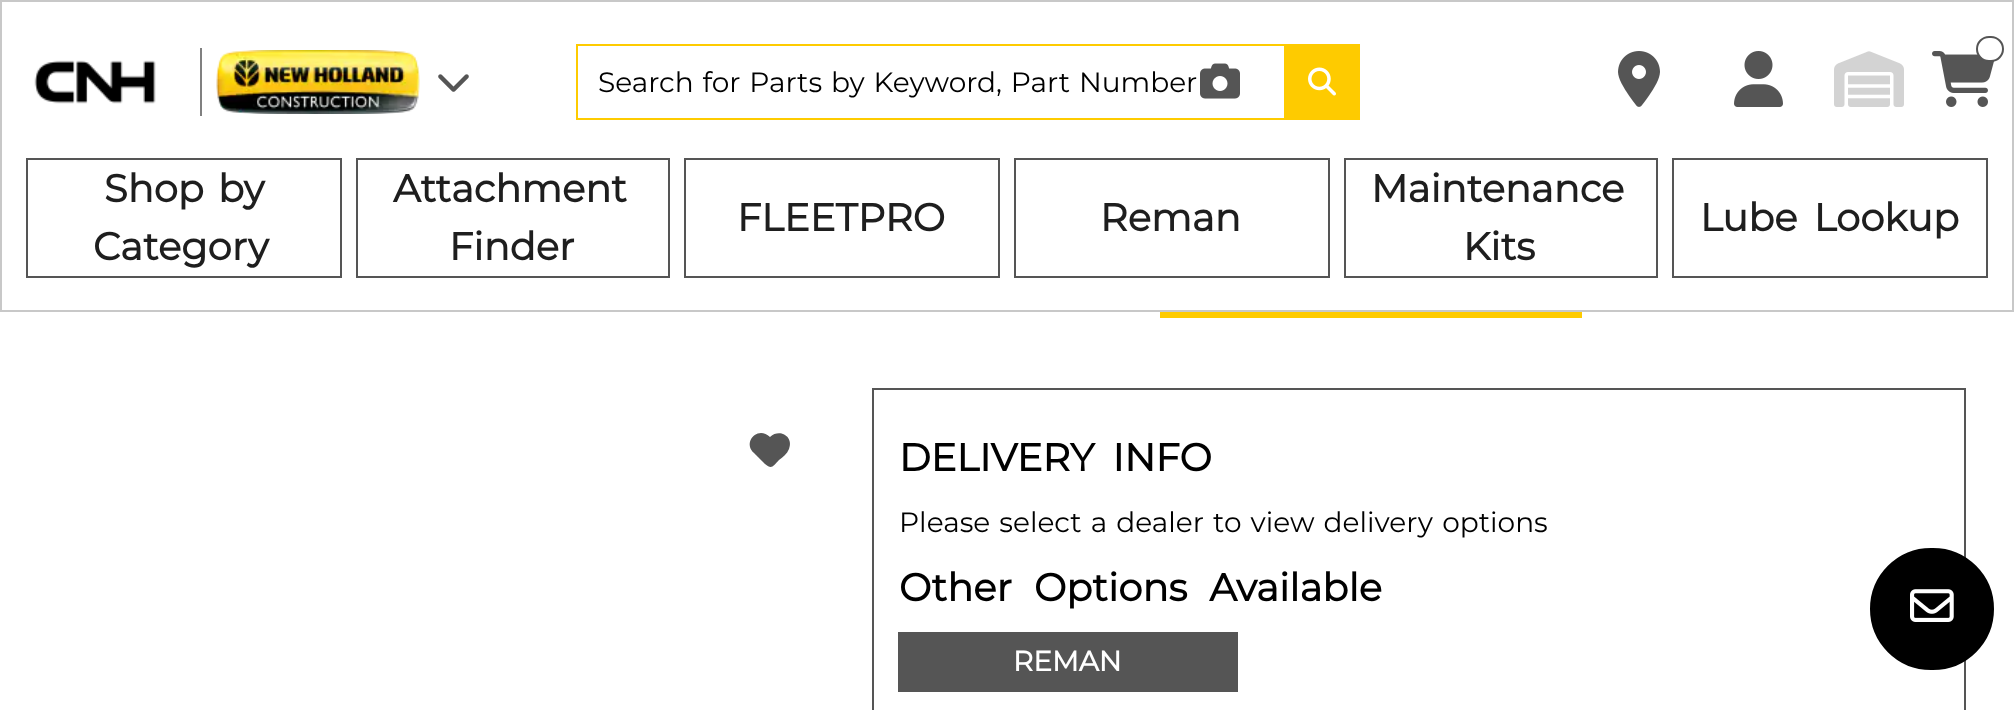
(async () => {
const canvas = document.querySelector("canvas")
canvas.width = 2014
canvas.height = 710
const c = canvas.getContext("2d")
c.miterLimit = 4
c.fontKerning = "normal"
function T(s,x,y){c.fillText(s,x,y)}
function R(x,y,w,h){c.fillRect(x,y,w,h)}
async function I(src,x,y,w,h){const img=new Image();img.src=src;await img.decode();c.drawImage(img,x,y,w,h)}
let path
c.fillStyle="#fff"
R(0,0,2014,710)
c.strokeStyle="#c8c8c8"
c.lineWidth=2
c.strokeRect(1,1,2012,310)
await I("1.png",34,60,122,44)
c.fillStyle="#808080"
R(200,48,2,68)
await I("2.png",216,50,204,64)
await I("3.png",438,74,31,18)
c.strokeStyle="#fecb00"
c.strokeRect(577,45,708,74)
c.wordSpacing="1.5px"
c.font="28px Montserrat"
c.fillStyle="#000"
T("Search for Parts by Keyword, Part Number",598,92)
await I("4.png",1200,63,40,36)
c.fillStyle="#fecb00"
R(1286,44,74,76)
await I("5.png",1308,67,28,29)
await I("6.png",1618,51,42,56)
await I("7.png",1734,51,49,56)
await I("8.png",1834,51,70,56)
await I("9.png",1932,51,62,56)
c.fillStyle="#fff"
c.beginPath()
c.roundRect(1977,37,26,24,12)
c.fill()
c.strokeStyle="#555"
c.stroke()
c.strokeRect(27,159,314,118)
c.wordSpacing="4px"
c.font="bold 38.5px Montserrat"
c.fillStyle="#1e1e1e"
T("Shop by",104,202)
c.wordSpacing="0px"
T("Category",93,260)
c.strokeRect(357,159,312,118)
T("Attachment",393,202)
T("Finder",449,260)
c.strokeRect(685,159,314,118)
T("FLEETPRO",737,231)
c.strokeRect(1015,159,314,118)
T("Reman",1100,231)
c.strokeRect(1345,159,312,118)
T("Maintenance",1371,202)
T("Kits",1463,260)
c.strokeRect(1673,159,314,118)
c.wordSpacing="6px"
T("Lube Lookup",1700,231)
c.fillStyle="#555"
path = new Path2D("M754 453l11 11c7 6 8 2 14-4c4-3 8-6 10-11c5-12-9-21-19-12c-12-12-28 5-16 16z")
c.fill(path)
c.fillStyle="#fecb00"
R(1160,312,422,6)
c.strokeRect(873,389,1092,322)
c.wordSpacing="8px"
c.fillStyle="#000"
T("DELIVERY INFO",899,471)
c.wordSpacing="1.75px"
c.font="28px Montserrat"
T("Please select a dealer to view delivery options",899,532)
c.wordSpacing="12px"
c.font="bold 38.5px Montserrat"
T("Other Options Available",899,601)
c.fillStyle="#555"
R(898,632,340,60)
c.wordSpacing="0px"
c.font="bold 28px Montserrat"
c.fillStyle="#fff"
T("REMAN",1013,671)
c.fillStyle="#000"
c.beginPath()
c.roundRect(1872,550,120,118,59)
c.fill()
c.strokeStyle="#000"
c.lineWidth=4
c.stroke()
await I("10.png",1910,589,44,33)
})()
